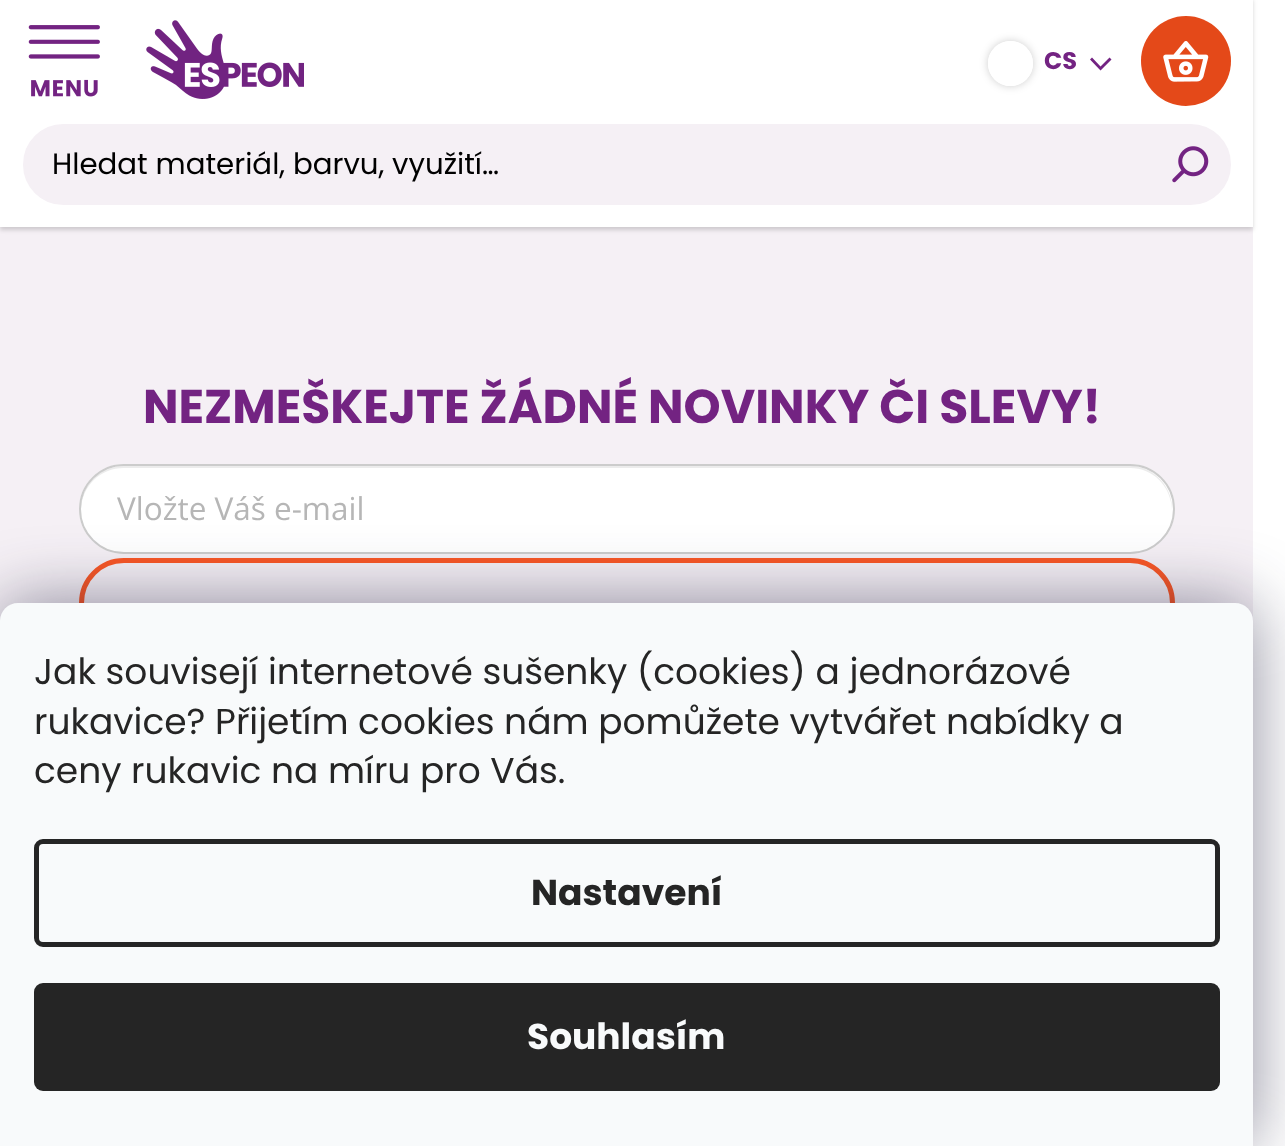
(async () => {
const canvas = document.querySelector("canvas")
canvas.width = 1285
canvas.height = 1146
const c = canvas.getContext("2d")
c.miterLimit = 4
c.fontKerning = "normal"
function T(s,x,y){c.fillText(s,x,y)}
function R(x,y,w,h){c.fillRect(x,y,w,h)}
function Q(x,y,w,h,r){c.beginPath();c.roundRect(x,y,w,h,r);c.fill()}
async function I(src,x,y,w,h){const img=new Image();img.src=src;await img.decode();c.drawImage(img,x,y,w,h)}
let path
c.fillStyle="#fff"
R(0,0,1285,1146)
c.fillStyle="#f5f0f5"
R(0,227,1253,394)
c.fillStyle="#00000029"
c.filter="blur(2px)"
c.beginPath()
c.rect(0,0,1253,230)
c.fill()
c.filter="none"
c.fillStyle="#fff"
R(0,0,1253,227)
await I("1.png",28,25,72,72)
c.save()
path = new Path2D("M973 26h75v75h-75zm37.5 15c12.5 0 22.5 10 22.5 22.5c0 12.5-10 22.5-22.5 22.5c-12.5 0-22.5-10-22.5-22.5c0-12.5 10-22.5 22.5-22.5z")
c.clip(path,"evenodd")
c.fillStyle="#00000033"
c.filter="blur(4.5px)"
c.beginPath()
c.roundRect(988,41,45,45,22.5)
c.fill()
c.filter="none"
c.restore()
c.beginPath()
c.arc(1010.5,63.5,21.5,0,7)
c.strokeStyle="#fff"
c.lineWidth=2
c.stroke()
c.font="bold 24px Poppins"
c.fillStyle="#732382"
T("CS",1044,69)
path = new Path2D("M1111.5 59.5l-2-2l-9 9l-8.5-9l-2 2l10.5 11z")
c.fill(path)
await I("2.png",146,20,158,79)
c.fillStyle="#e44919"
c.beginPath()
c.arc(1186,61,45,0,7)
c.fill()
await I("3.png",1163,41,46,41)
c.fillStyle="#f5f0f5"
c.beginPath()
c.roundRect(24,125,1206,79,39.5)
c.fill()
c.strokeStyle="#f5f0f5"
c.stroke()
c.font="29.25px Poppins"
c.fillStyle="#000"
T("Hledat materiál, barvu, využití…",52,174)
await I("4.png",1172,146,37,37)
c.font="bold 47.25px Poppins"
c.fillStyle="#732382"
T("NEZMEŠKEJTE ŽÁDNÉ NOVINKY ČI SLEVY!",143,423)
c.fillStyle="#fff"
Q(79,464,1096,90,45)
c.fillStyle="#ececec"
path = new Path2D("M124 468h1006c23 0 41 18 42 42c1-24-19-44-42-44h-1006l-9 1c-20 4-35 22-34 43c1-24 19-42 43-42z")
c.fill(path)
c.beginPath()
c.roundRect(80,465,1094,88,44)
c.strokeStyle="#ccc"
c.stroke()
c.font="31.5px Open Sans"
c.fillStyle="#b6b6b6"
T("Vložte Váš e-mail",117,520)
c.beginPath()
c.roundRect(81.5,560.5,1091,85,42.5)
c.strokeStyle="#f95725"
c.lineWidth=5
c.stroke()
c.fillStyle="#1b193980"
c.filter="blur(34px)"
c.beginPath()
c.roundRect(0,603,1253,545,18)
c.fill()
c.filter="none"
c.fillStyle="#f8fafb"
path = new Path2D("M18 603h1217c10 0 18 8 18 18v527h-1253v-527c0-10 8-18 18-18z")
c.fill(path)
c.font="36px Poppins"
c.fillStyle="#252525"
T("Jak souvisejí internetové sušenky (cookies) a jednorázové",34,684)
T("rukavice? Přijetím cookies nám pomůžete vytvářet nabídky a",34,734)
T("ceny rukavic na míru pro Vás.",34,783)
c.beginPath()
c.roundRect(36.5,841.5,1181,103,6.5)
c.strokeStyle="#252525"
c.stroke()
c.font="bold 36px Poppins"
T("Nastavení",531,905)
Q(34,983,1186,108,9)
c.fillStyle="#f8fafb"
T("Souhlasím",527,1049)
})()
